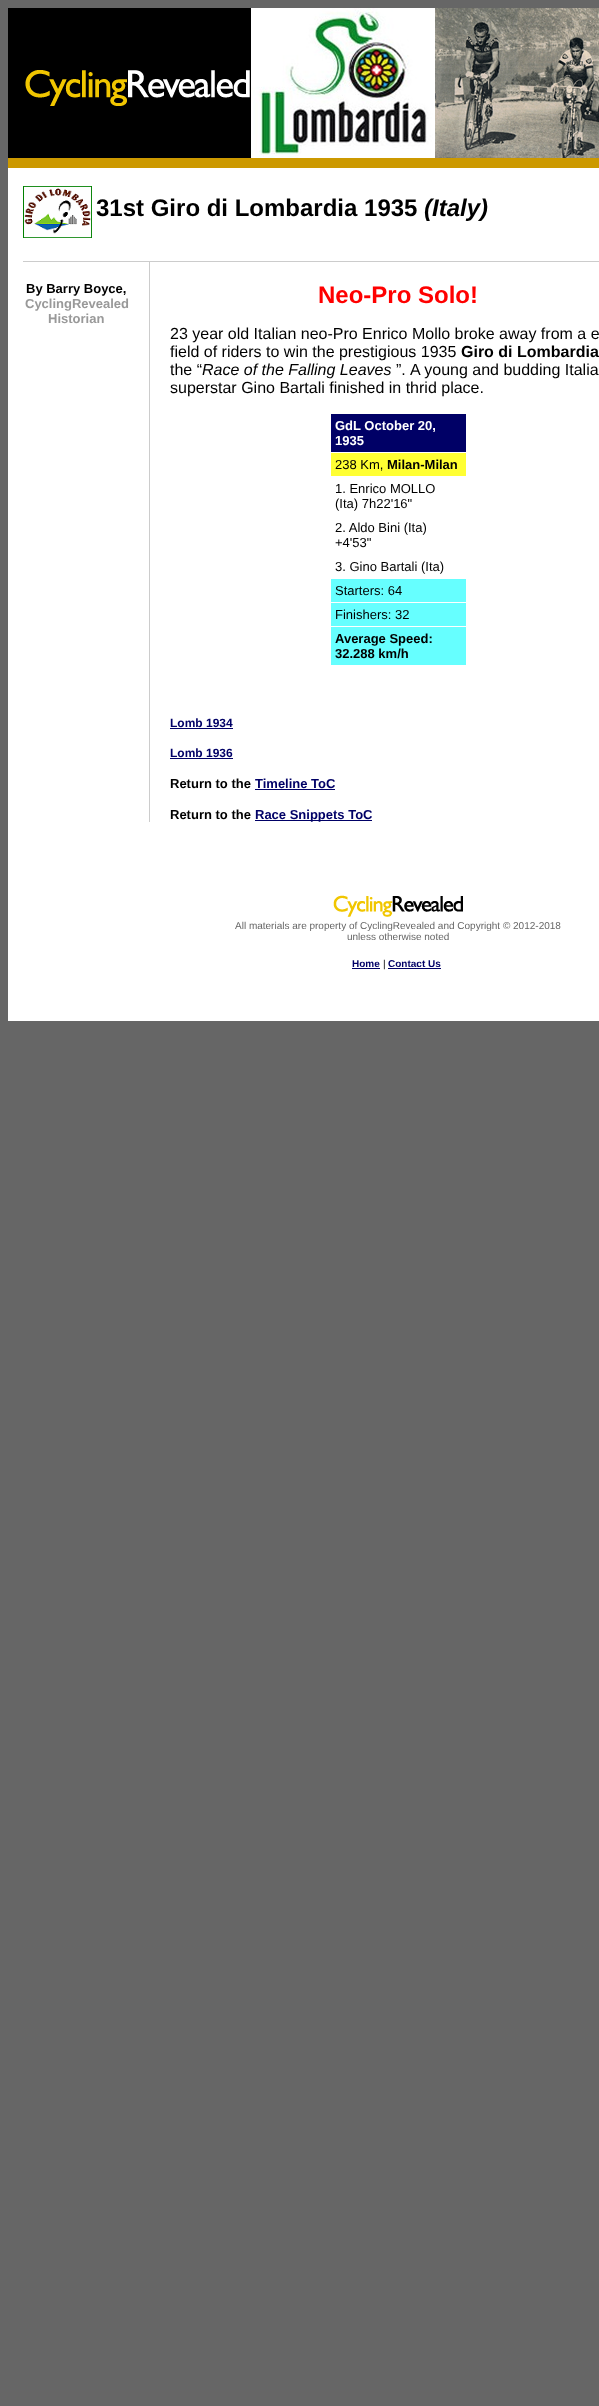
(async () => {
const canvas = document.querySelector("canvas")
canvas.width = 599
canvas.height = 2406
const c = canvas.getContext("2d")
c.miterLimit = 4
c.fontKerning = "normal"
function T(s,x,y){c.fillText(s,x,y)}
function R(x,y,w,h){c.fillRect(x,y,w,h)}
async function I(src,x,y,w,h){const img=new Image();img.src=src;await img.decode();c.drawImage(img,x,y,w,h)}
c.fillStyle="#666"
R(0,0,599,2406)
c.fillStyle="#000"
R(8,8,243,150)
await I("1.png",25,70,225,36)
await I("2.png",251,8,348,150)
c.fillStyle="#c90"
R(8,158,591,10)
c.fillStyle="#fff"
R(8,168,591,853)
await I("3.png",23,186,69,52)
c.font="bold 24px Liberation Sans"
c.fillStyle="#000"
T("31st Giro di Lombardia 1935",96,216)
c.font="italic bold 24px Liberation Sans"
T("(Italy)",424,216)
c.fillStyle="#ccc"
R(23,261,107,1)
await I("4.png",130,261,40,20)
R(170,261,429,1)
c.font="bold 13px Liberation Sans"
c.fillStyle="#000"
T("By Barry Boyce,",26,293)
c.fillStyle="#999"
T("CyclingRevealed",25,308)
T("Historian",48,323)
c.fillStyle="#ccc"
R(149,281,1,541)
c.font="bold 24px Liberation Sans"
c.fillStyle="#f00"
T("Neo-Pro Solo!",318,303)
c.font="16px Liberation Sans"
c.fillStyle="#000"
T("23 year old Italian neo-Pro Enrico Mollo broke away from a e",170,339)
T("field of riders to win the prestigious 1935",170,357)
c.font="bold 16px Liberation Sans"
T("Giro di Lombardia",461,357)
c.font="16px Liberation Sans"
T("the “",170,375)
c.font="italic 16px Liberation Sans"
T("Race of the Falling Leaves",202,375)
c.font="16px Liberation Sans"
T("”.",396,375)
T("A young and budding Italia",410,375)
T("superstar Gino Bartali finished in thrid place.",170,393)
c.fillStyle="#006"
R(331,414,135,38)
c.font="bold 13px Liberation Sans"
c.fillStyle="#fff"
T("GdL October 20,",335,430)
T("1935",335,445)
c.fillStyle="#ff3"
R(331,453,135,23)
c.font="13px Liberation Sans"
c.fillStyle="#000"
T("238 Km,",335,469)
c.font="bold 13px Liberation Sans"
T("Milan-Milan",387,469)
c.font="13px Liberation Sans"
T("1. Enrico MOLLO",335,493)
T("(Ita) 7h22'16\"",335,508)
T("2. Aldo Bini (Ita)",335,532)
T("+4'53\"",335,547)
T("3. Gino Bartali (Ita)",335,571)
c.fillStyle="#6ff"
R(331,579,135,23)
c.fillStyle="#000"
T("Starters: 64",335,595)
c.fillStyle="#6ff"
R(331,603,135,23)
c.fillStyle="#000"
T("Finishers: 32",335,619)
c.fillStyle="#6ff"
R(331,627,135,38)
c.font="bold 13px Liberation Sans"
c.fillStyle="#000"
T("Average Speed:",335,643)
T("32.288 km/h",335,658)
c.font="bold 12px Liberation Sans"
c.fillStyle="#006"
T("Lomb 1934",170,727)
R(170,728,63,1)
T("Lomb 1936",170,757)
R(170,758,63,1)
c.font="bold 13px Liberation Sans"
c.fillStyle="#000"
T("Return to the",170,788)
c.fillStyle="#006"
T("Timeline ToC",255,788)
R(255,789,80,1)
c.fillStyle="#000"
T("Return to the",170,819)
c.fillStyle="#006"
R(255,820,117,1)
T("Race Snippets ToC",255,819)
await I("5.png",333,895,130,22)
c.font="10px Liberation Sans"
c.fillStyle="#666"
T("All materials are property of CyclingRevealed and Copyright © 2012-2018",235,929)
T("unless otherwise noted",347,940)
c.font="bold 10px Liberation Sans"
c.fillStyle="#006"
T("Home",352,967)
R(352,968,28,1)
c.font="10px Liberation Sans"
c.fillStyle="#000"
T("|",383,967)
c.font="bold 10px Liberation Sans"
c.fillStyle="#006"
T("Contact Us",388,967)
R(388,968,53,1)
})()
